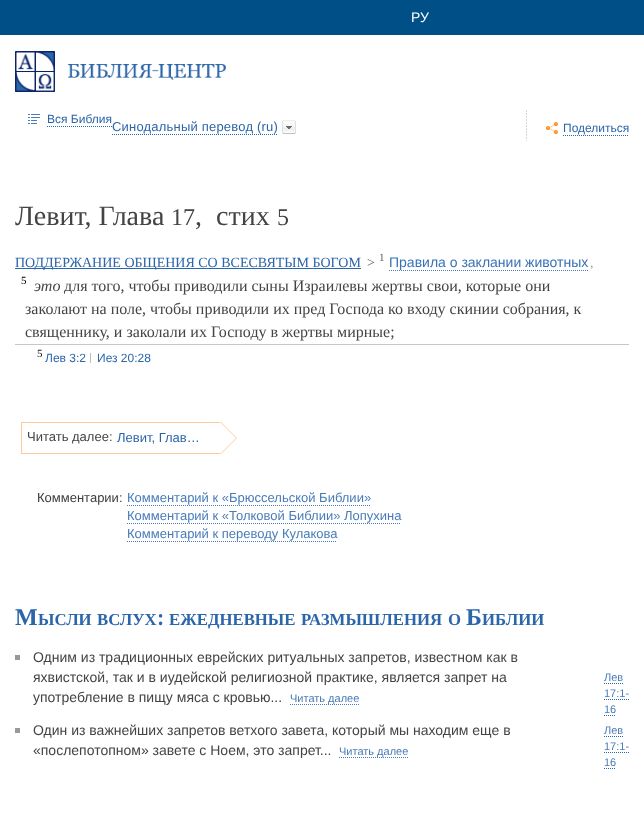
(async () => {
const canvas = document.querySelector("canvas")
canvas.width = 644
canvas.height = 815
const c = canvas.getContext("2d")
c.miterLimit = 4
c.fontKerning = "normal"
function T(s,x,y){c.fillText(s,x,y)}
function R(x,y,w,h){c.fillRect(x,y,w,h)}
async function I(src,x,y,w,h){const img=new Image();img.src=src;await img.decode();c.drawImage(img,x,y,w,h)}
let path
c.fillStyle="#fff"
R(0,0,644,815)
c.fillStyle="#004f87"
R(0,0,644,35)
c.font="14px Liberation Sans"
c.fillStyle="#fff"
T("РУ",411,22)
await I("1.png",68,64,158,16)
await I("2.png",15,51,40,41)
await I("3.png",28,114,12,10)
c.font="12px Liberation Sans"
c.fillStyle="#2b65aa"
T("Вся Библия",47,123)
path = new Path2D("M47 126.5h65")
c.strokeStyle="#2b65aa"
c.setLineDash([1,1])
c.stroke(path)
c.letterSpacing="0.2px"
c.font="13px Liberation Sans"
T("Синодальный перевод (ru)",112,131)
path = new Path2D("M112 134.5h166")
c.stroke(path)
await I("4.png",282,120,14,14)
await I("5.png",526,110,1,31)
await I("6.png",546,122,12,12)
c.letterSpacing="0px"
c.font="12px Liberation Sans"
T("Поделиться",563,132)
path = new Path2D("M563 135.5h66")
c.stroke(path)
c.font="28px Liberation Serif"
c.fillStyle="#444"
T("Левит, Глава",15,225)
c.font="24px Liberation Serif"
T("17",171,225)
c.font="28px Liberation Serif"
T(",  стих",195,225)
c.font="24px Liberation Serif"
T("5",277,225)
c.fillStyle="#2b65aa"
R(15,268,346,1)
c.font="14px Liberation Serif"
T("ПОДДЕРЖАНИЕ ОБЩЕНИЯ СО ВСЕСВЯТЫМ БОГОМ",15,267)
c.fillStyle="#616161"
T(">",367,267)
c.font="11px Liberation Serif"
T("1",379,261)
c.font="14px Liberation Sans"
c.fillStyle="#3772b8"
T("Правила о заклании животных",389,267)
c.font="14px Liberation Serif"
c.fillStyle="#a4a4a4"
T(",",590,267)
path = new Path2D("M389 270.5h199")
c.strokeStyle="#487bb7"
c.stroke(path)
c.font="11px Liberation Serif"
c.fillStyle="#000"
T("5",21,284)
c.font="italic 16px Liberation Serif"
c.fillStyle="#444"
T("это",34,291)
c.font="16px Liberation Serif"
T("для того, чтобы приводили сыны Израилевы жертвы свои, которые они",64,291)
T("заколают на поле, чтобы приводили их пред Господа ко входу скинии собрания, к",25,314)
T("священнику, и заколали их Господу в жертвы мирные;",25,337)
c.fillStyle="#c7c7c7"
R(15,344,614,1)
c.font="11px Liberation Serif"
c.fillStyle="#1a1b1b"
T("5",37,357)
c.font="12px Liberation Sans"
c.fillStyle="#2b65aa"
T("Лев 3:2",45,362)
c.fillStyle="#bfbfbf"
R(90,353,1,10)
c.fillStyle="#2b65aa"
T("Иез 20:28",97,362)
c.fillStyle="#fc9"
R(21,422,200,1)
R(21,453,200,1)
R(21,422,1,32)
path = new Path2D("M221 454v-32l16 16z")
c.fill(path)
c.fillStyle="#fff"
path = new Path2D("M220 454v-32l16 16z")
c.fill(path)
c.font="13px Liberation Sans"
c.fillStyle="#444"
T("Читать далее:",27,441)
c.fillStyle="#2b65aa"
T("Левит, Глав…",117,442)
c.fillStyle="#3c3c3c"
T("Комментарии:",37,502)
c.fillStyle="#487bb7"
T("Комментарий к «Брюссельской Библии»",127,502)
path = new Path2D("M127 505.5h244")
c.stroke(path)
T("Комментарий к «Толковой Библии» Лопухина",127,520)
path = new Path2D("M127 523.5h274")
c.stroke(path)
T("Комментарий к переводу Кулакова",127,538)
path = new Path2D("M127 541.5h210")
c.stroke(path)
c.font="bold 24px Liberation Serif"
c.fillStyle="#2b65aa"
T("М",15,625)
c.font="bold 16.75px Liberation Serif"
T("ЫСЛИ",38,625)
T("ВСЛУХ",97,625)
c.font="bold 24px Caladea"
T(":",157,625)
c.font="bold 16.75px Liberation Serif"
T("ЕЖЕДНЕВНЫЕ",169,625)
T("РАЗМЫШЛЕНИЯ",301,625)
T("О",448,625)
c.font="bold 24px Liberation Serif"
T("Б",466,625)
c.font="bold 16.75px Liberation Serif"
T("ИБЛИИ",482,625)
c.fillStyle="#999"
R(15,655,5,5)
c.font="14px Liberation Sans"
c.fillStyle="#444"
T("Одним из традиционных еврейских ритуальных запретов, известном как в",33,662)
T("яхвистской, так и в иудейской религиозной практике, является запрет на",33,682)
T("употребление в пищу мяса с кровью...",33,702)
path = new Path2D("M290 704.5h69")
c.stroke(path)
c.font="11px Liberation Sans"
c.fillStyle="#487bb7"
T("Читать далее",290,702)
T("Лев",604,681)
path = new Path2D("M604 683.5h19m-19 16h25m-25 16h12")
c.strokeStyle="#2b65aa"
c.stroke(path)
T("17:1-",604,697)
T("16",604,713)
c.fillStyle="#999"
R(15,728,5,5)
c.font="14px Liberation Sans"
c.fillStyle="#444"
T("Один из важнейших запретов ветхого завета, который мы находим еще в",33,735)
T("«послепотопном» завете с Ноем, это запрет...",33,755)
path = new Path2D("M339 757.5h70")
c.strokeStyle="#487bb7"
c.stroke(path)
c.font="11px Liberation Sans"
c.fillStyle="#487bb7"
T("Читать далее",339,755)
T("Лев",604,734)
path = new Path2D("M604 736.5h19m-19 16h25m-25 16h12")
c.strokeStyle="#2b65aa"
c.stroke(path)
T("17:1-",604,750)
T("16",604,766)
})()
